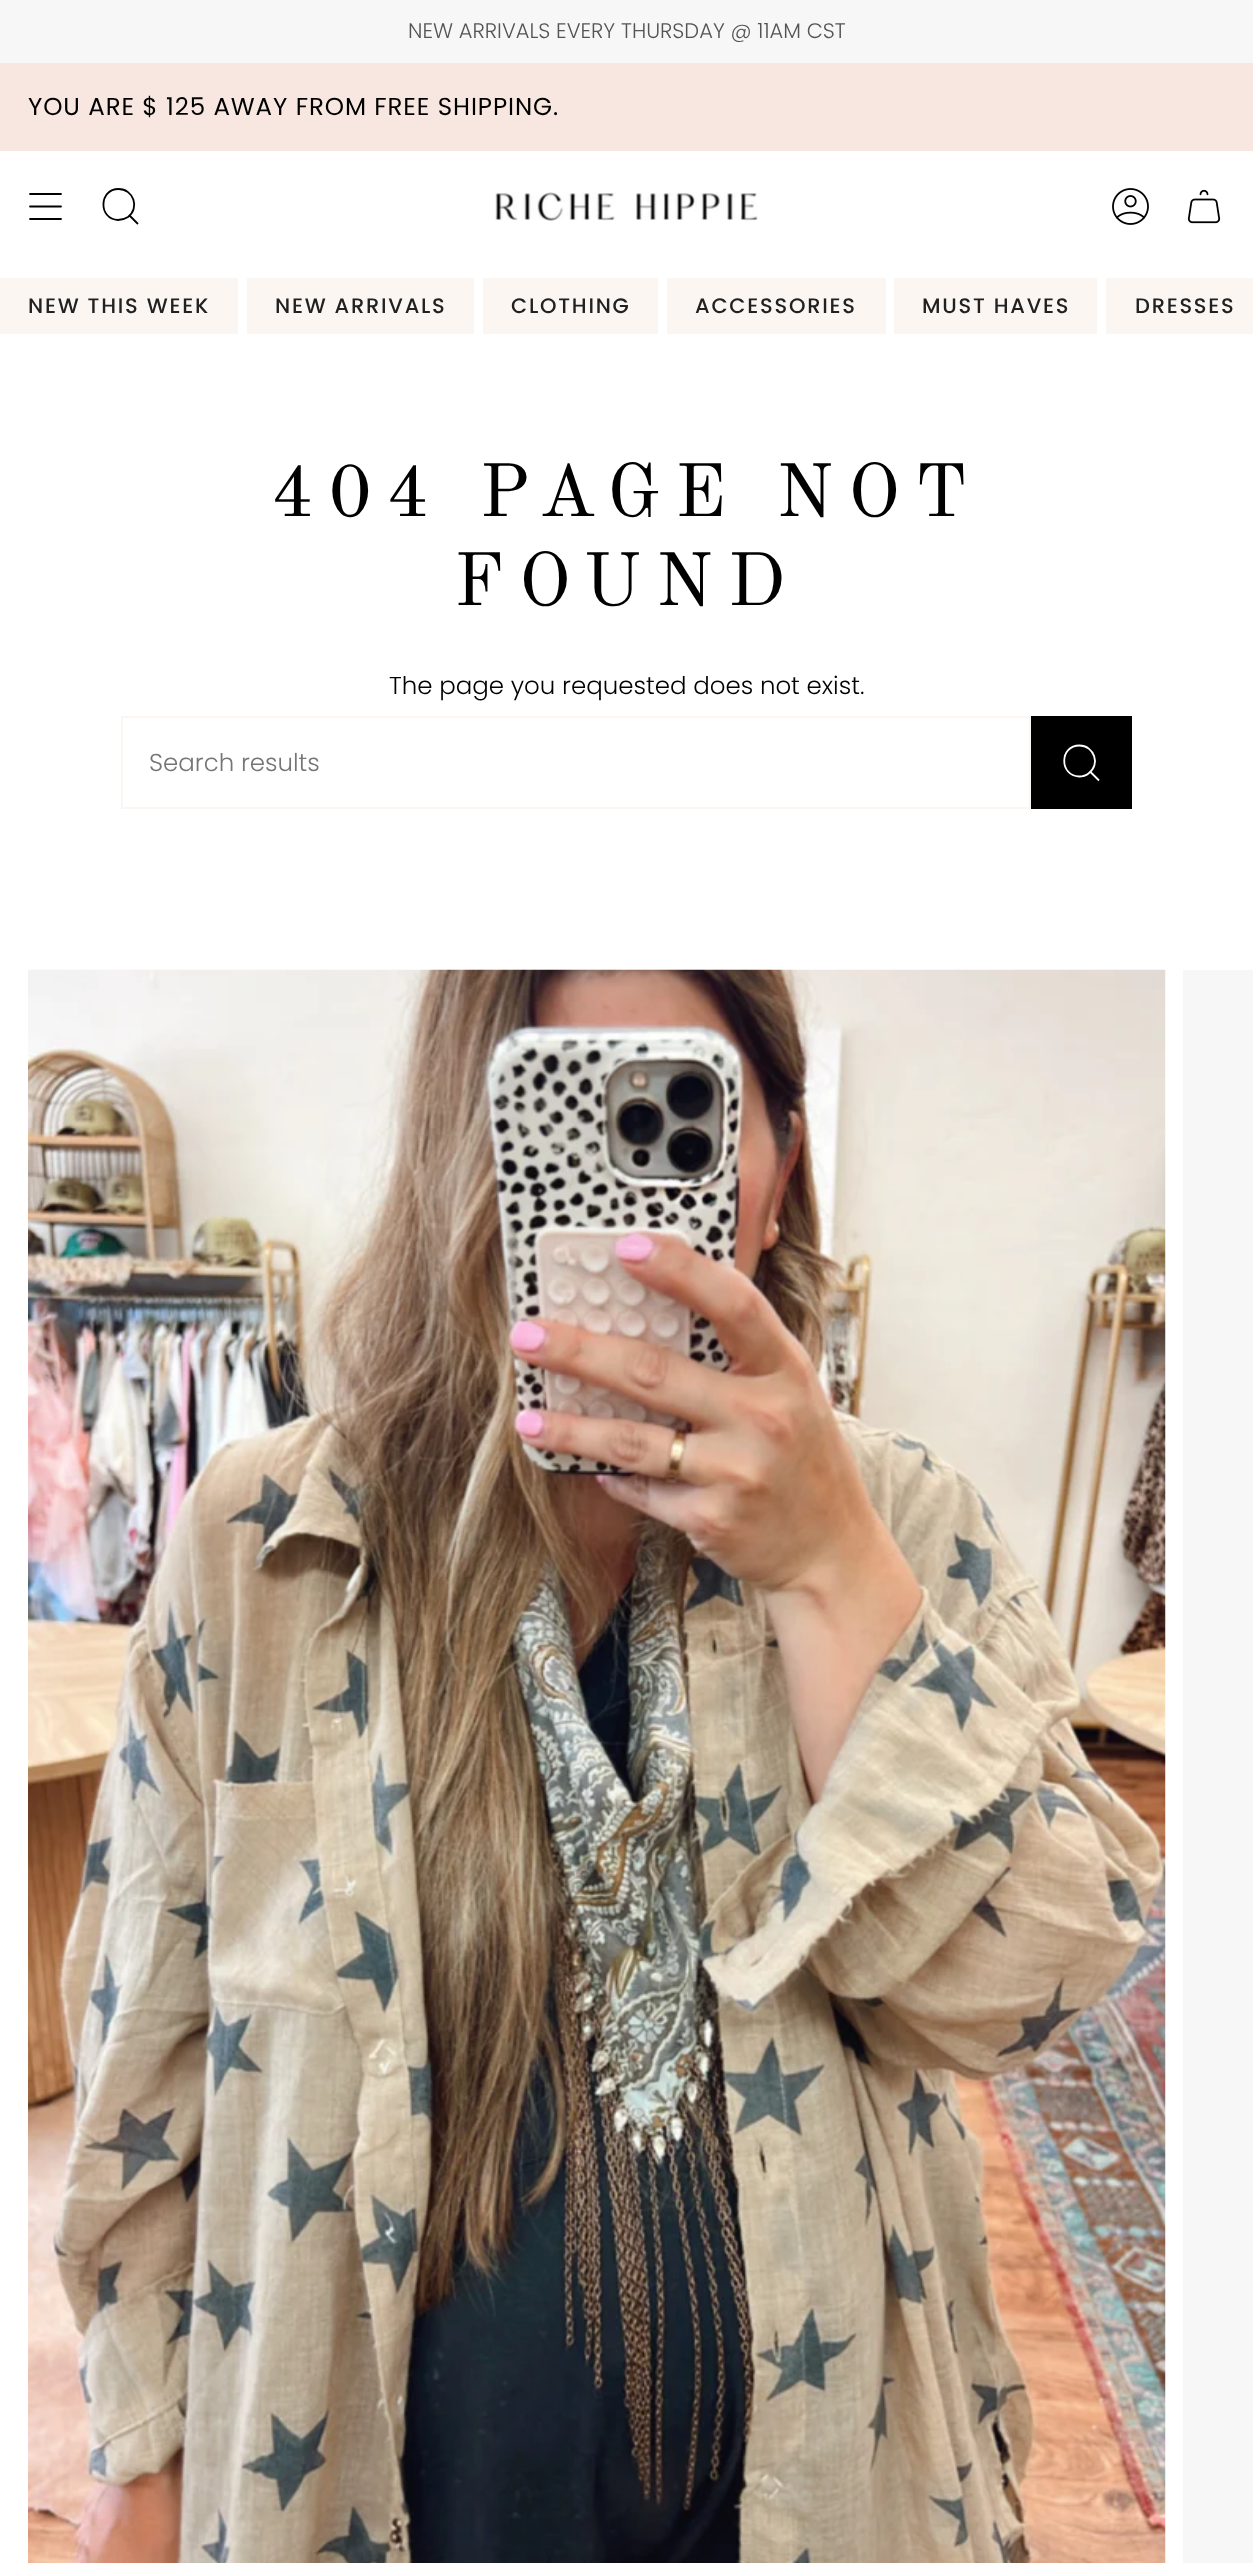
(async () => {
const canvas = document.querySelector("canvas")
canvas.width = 1253
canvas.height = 2563
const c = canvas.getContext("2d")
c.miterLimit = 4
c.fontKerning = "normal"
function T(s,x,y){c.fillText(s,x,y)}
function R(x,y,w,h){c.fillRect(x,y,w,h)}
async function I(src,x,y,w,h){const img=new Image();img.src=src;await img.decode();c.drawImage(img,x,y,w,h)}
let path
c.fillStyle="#fff"
R(0,0,1253,2563)
c.fillStyle="#f7f7f7"
R(0,0,1253,63)
c.font="300 21px Poppins"
c.fillStyle="#545454"
T("NEW ARRIVALS EVERY THURSDAY @ 11AM CST",408,38)
c.fillStyle="#f8e7e0"
R(0,63,1253,88)
c.letterSpacing="0.9px"
c.font="24.5px Poppins"
c.fillStyle="#000"
T("YOU ARE $ 125 AWAY FROM FREE SHIPPING.",28,115)
path = new Path2D("M30 194h31m-31 12.5h31m-31 12.5h31")
c.strokeStyle="#000"
c.lineWidth=1.8
c.lineCap="round"
c.lineJoin="round"
c.stroke(path)
path = new Path2D("M118.5 189c15 0 21.5 19 9.5 28c-3 2-6.5 3-10 3c-20-1-19-31 .5-31zm11 26.5l8.5 8.5")
c.lineCap="butt"
c.lineJoin="miter"
c.stroke(path)
await I("1.png",495,192,263,29)
await I("2.png",1112,188,37,37)
await I("3.png",1187,189,34,35)
c.fillStyle="#fbf6f2"
R(0,278,238,56)
c.letterSpacing="1.75px"
c.font="500 21px Poppins"
c.fillStyle="#212121"
T("NEW THIS WEEK",28,313)
c.fillStyle="#fbf6f2"
R(247,278,227,56)
c.fillStyle="#212121"
T("NEW ARRIVALS",275,313)
c.fillStyle="#fbf6f2"
R(483,278,175,56)
c.fillStyle="#212121"
T("CLOTHING",511,313)
c.fillStyle="#fbf6f2"
R(667,278,219,56)
c.fillStyle="#212121"
T("ACCESSORIES",695,313)
c.fillStyle="#fbf6f2"
R(894,278,203,56)
c.fillStyle="#212121"
T("MUST HAVES",922,313)
c.fillStyle="#fbf6f2"
R(1106,278,147,56)
c.fillStyle="#212121"
T("DRESSES",1135,313)
c.letterSpacing="14.75px"
c.font="74px Old Standard TT"
c.fillStyle="#000"
T("404 PAGE NOT",271,516)
T("FOUND",454,605)
c.letterSpacing="0px"
c.font="300 24.5px Poppins"
T("The page you requested does not exist.",389,694)
c.strokeStyle="#fbf6f2"
c.lineWidth=2
c.strokeRect(122,717,908,91)
c.fillStyle="#757575"
T("Search results",149,771)
c.fillStyle="#000"
R(1031,716,101,93)
path = new Path2D("M1079.5 745.5c14.5 0 21.5 19 9 28c-2.5 2-6 3-9.5 3c-20-1-19.5-31 .5-31zm11 26.5l8.5 8.5")
c.strokeStyle="#fff"
c.lineWidth=1.8
c.stroke(path)
await I("4.png",28,969,1138,1594)
c.fillStyle="#f7f7f7"
R(1183,970,70,1593)
})()
